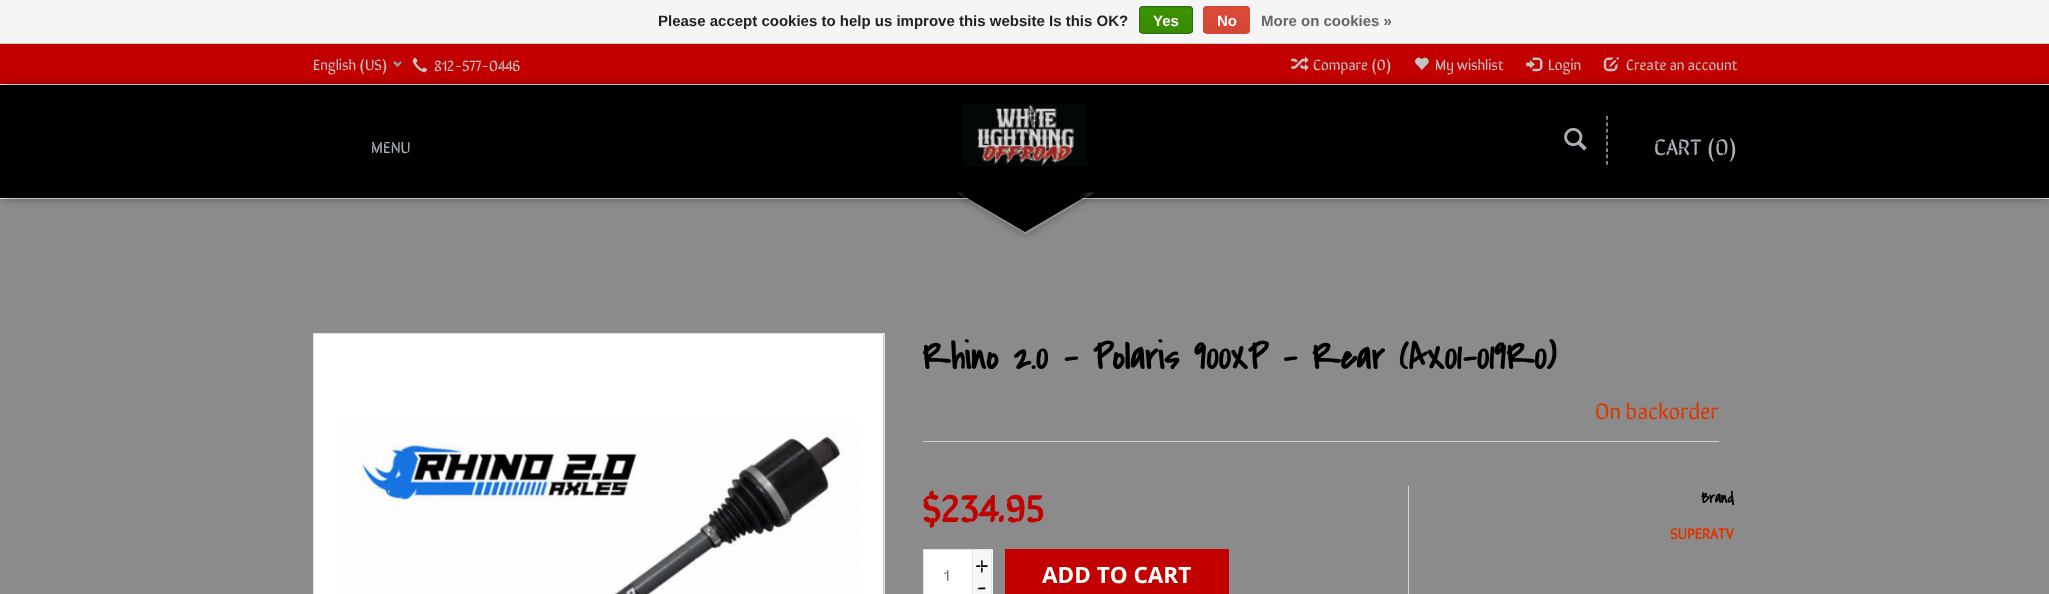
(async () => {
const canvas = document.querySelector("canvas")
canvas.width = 2049
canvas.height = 594
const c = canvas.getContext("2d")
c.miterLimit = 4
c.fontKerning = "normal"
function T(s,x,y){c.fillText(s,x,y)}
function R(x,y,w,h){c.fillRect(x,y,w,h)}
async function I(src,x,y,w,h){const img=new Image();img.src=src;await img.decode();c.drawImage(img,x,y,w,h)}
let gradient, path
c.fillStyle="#8b8b8b"
R(0,0,2049,594)
c.fillStyle="#f5f5f5"
R(0,0,2049,43)
c.fillStyle="#ccc"
R(0,43,2049,1)
c.font="bold 15px Liberation Sans"
c.fillStyle="#222"
T("Please accept cookies to help us improve this website Is this OK?",658,26)
c.save()
c.beginPath()
c.roundRect(1139,6,54,28,4)
c.clip()
gradient = c.createLinearGradient(1166,-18,1166,7.5)
gradient.addColorStop(0,"#3c9300")
gradient.addColorStop(1,"#398a00")
c.fillStyle = gradient
R(1139,6,54,2)
gradient = c.createLinearGradient(1166,7.5,1166,33)
gradient.addColorStop(0,"#3c9300")
gradient.addColorStop(1,"#398a00")
c.fillStyle = gradient
R(1139,8,54,25)
c.restore()
c.beginPath()
c.roundRect(1139.5,6.5,53,27,3.5)
c.strokeStyle="#29691d"
c.stroke()
c.fillStyle="#fff"
T("Yes",1153,26)
c.save()
c.beginPath()
c.roundRect(1203,6,47,28,4)
c.clip()
gradient = c.createLinearGradient(1226,-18,1226,7.5)
gradient.addColorStop(0,"#dc4a38")
gradient.addColorStop(1,"#d14836")
c.fillStyle = gradient
R(1203,6,47,2)
gradient = c.createLinearGradient(1226,7.5,1226,33)
gradient.addColorStop(0,"#dc4a38")
gradient.addColorStop(1,"#d14836")
c.fillStyle = gradient
R(1203,8,47,25)
c.restore()
c.beginPath()
c.roundRect(1203.5,6.5,46,27,3.5)
c.strokeStyle="#d14836"
c.stroke()
T("No",1217,26)
c.fillStyle="#666"
T("More on cookies »",1261,26)
c.fillStyle="#f0f0f0"
R(0,198,2049,1)
c.fillStyle="#c20000"
R(0,44,2049,40)
c.fillStyle="#f0f0f0"
R(0,84,2049,1)
c.fillStyle="#000000bf"
c.filter="blur(6px)"
c.beginPath()
c.rect(3,88,2045,107)
c.fill()
c.filter="none"
c.font="15px SirinStencil"
c.fillStyle="#c3c3c3"
T("English (US)",313,70)
c.fillStyle="#999"
path = new Path2D("M400.5 61l1.5 1.5l-4.5 4.5l-1.5-1.5z")
c.fill(path)
path = new Path2D("M395 61l4.5 4.5l-2 1.5l-4.5-4.5z")
c.fill(path)
await I("1.png",412,57,16,16)
c.fillStyle="#c3c3c3"
T("812-577-0446",434,71)
await I("2.png",1291,56,18,16)
T("Compare (0)",1313,70)
await I("3.png",1415,57,14,13)
T("My wishlist",1435,70)
await I("4.png",1526,57,17,15)
T("Login",1548,70)
await I("5.png",1603,57,16,15)
T("Create an account",1626,70)
c.fillStyle="#000"
R(0,85,2049,113)
c.font="16px SirinStencil"
c.fillStyle="#a9afb4"
T("MENU",371,153)
await I("6.png",963,104,124,63)
c.fillStyle="#000"
path = new Path2D("M955 191h140l-70 41z")
c.fill(path)
await I("7.png",956,192,138,46)
await I("8.png",1564,127,23,24)
path = new Path2D("M1607 116v49")
c.strokeStyle="#d5d5d5"
c.lineWidth=1.2
c.setLineDash([3.75,2.68])
c.stroke(path)
c.font="22.5px SirinStencil"
c.fillStyle="#a9afb4"
T("CART (0)",1654,155)
c.strokeStyle="#e5e5e5"
c.lineWidth=1
c.setLineDash([])
c.strokeRect(313.5,333.5,571,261)
c.fillStyle="#868686"
R(883,334,1,260)
await I("9.png",314,334,570,260)
c.fillStyle="#ccc"
R(923,441,796,1)
c.font="bold 37.5px Covered By Your Grace"
c.fillStyle="#000"
T("Rhino 2.0 - Polaris 900XP - Rear (AX01-019R0)",922,369)
c.font="22.5px SirinStencil"
c.fillStyle="#dc3700"
T("On backorder",1595,419)
c.font="bold 37.5px SirinStencil"
c.fillStyle="#c20000"
T("$234.95",922,522)
c.fillStyle="#fff"
c.beginPath()
c.rect(923.5,549.5,49,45)
c.fill()
c.stroke()
c.font="16px SirinStencil"
c.fillStyle="#777"
T("1",944,581)
c.fillStyle="#f7f7f7"
R(973,550,20,44)
c.fillStyle="#e5e5e5"
R(973,549,20,1)
R(991,549,1,45)
c.font="22.5px SirinStencil"
c.fillStyle="#000"
T("+",974,573)
T("-",976,595)
c.fillStyle="#c20000"
R(1005,549,224,45)
c.font="bold 22.5px Open Sans"
c.fillStyle="#fff"
T("ADD TO CART",1042,583)
c.fillStyle="#d5d5d5"
R(1408,486,1,108)
c.font="bold 16px Covered By Your Grace"
c.fillStyle="#000"
T("Brand",1701,503)
c.font="bold 15px SirinStencil"
c.fillStyle="#dc3700"
T("SUPERATV",1670,539)
})()
